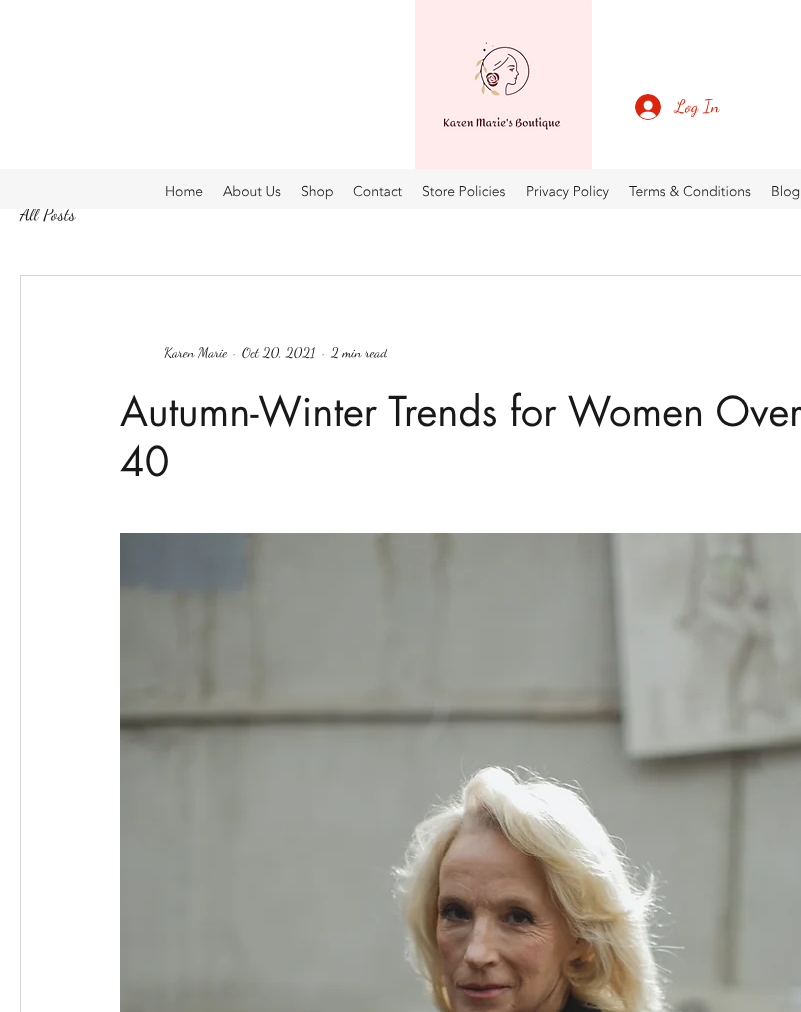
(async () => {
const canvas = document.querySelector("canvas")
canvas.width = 801
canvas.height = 1012
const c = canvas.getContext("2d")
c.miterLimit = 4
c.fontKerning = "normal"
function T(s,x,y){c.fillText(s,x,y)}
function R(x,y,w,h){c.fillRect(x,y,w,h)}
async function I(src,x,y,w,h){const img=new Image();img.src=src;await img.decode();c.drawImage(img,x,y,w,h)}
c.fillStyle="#fff"
R(0,0,801,1012)
await I("1.png",415,0,177,169)
await I("2.png",635,94,26,26)
c.font="18px Dancing Script"
c.fillStyle="#dd250e"
T("Log In",675,112)
c.fillStyle="#181818"
T("All Posts",20,220)
c.fillStyle="#f6f6f6"
R(0,169,801,40)
c.font="300 14px 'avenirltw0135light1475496'"
c.fillStyle="#181818"
T("Home",165,196)
T("About Us",223,196)
T("Shop",301,196)
T("Contact",353,196)
T("Store Policies",422,196)
T("Privacy Policy",526,196)
T("Terms & Conditions",629,196)
T("Blog",771,196)
c.strokeStyle="#d4d4d4"
c.strokeRect(20.5,275.5,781,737)
c.font="14px Dancing Script"
T("Karen Marie",164,357)
T("·",233,357)
T("Oct 20, 2021",242,357)
T("·",322,357)
c.save()
c.beginPath()
c.rect(316,342,71,21)
c.clip()
T("2 min read",331,357)
c.restore()
c.font="40px futura"
T("Autumn-Winter Trends for Women Over",120,426)
T("40",120,476)
await I("3.png",120,533,681,479)
})()
